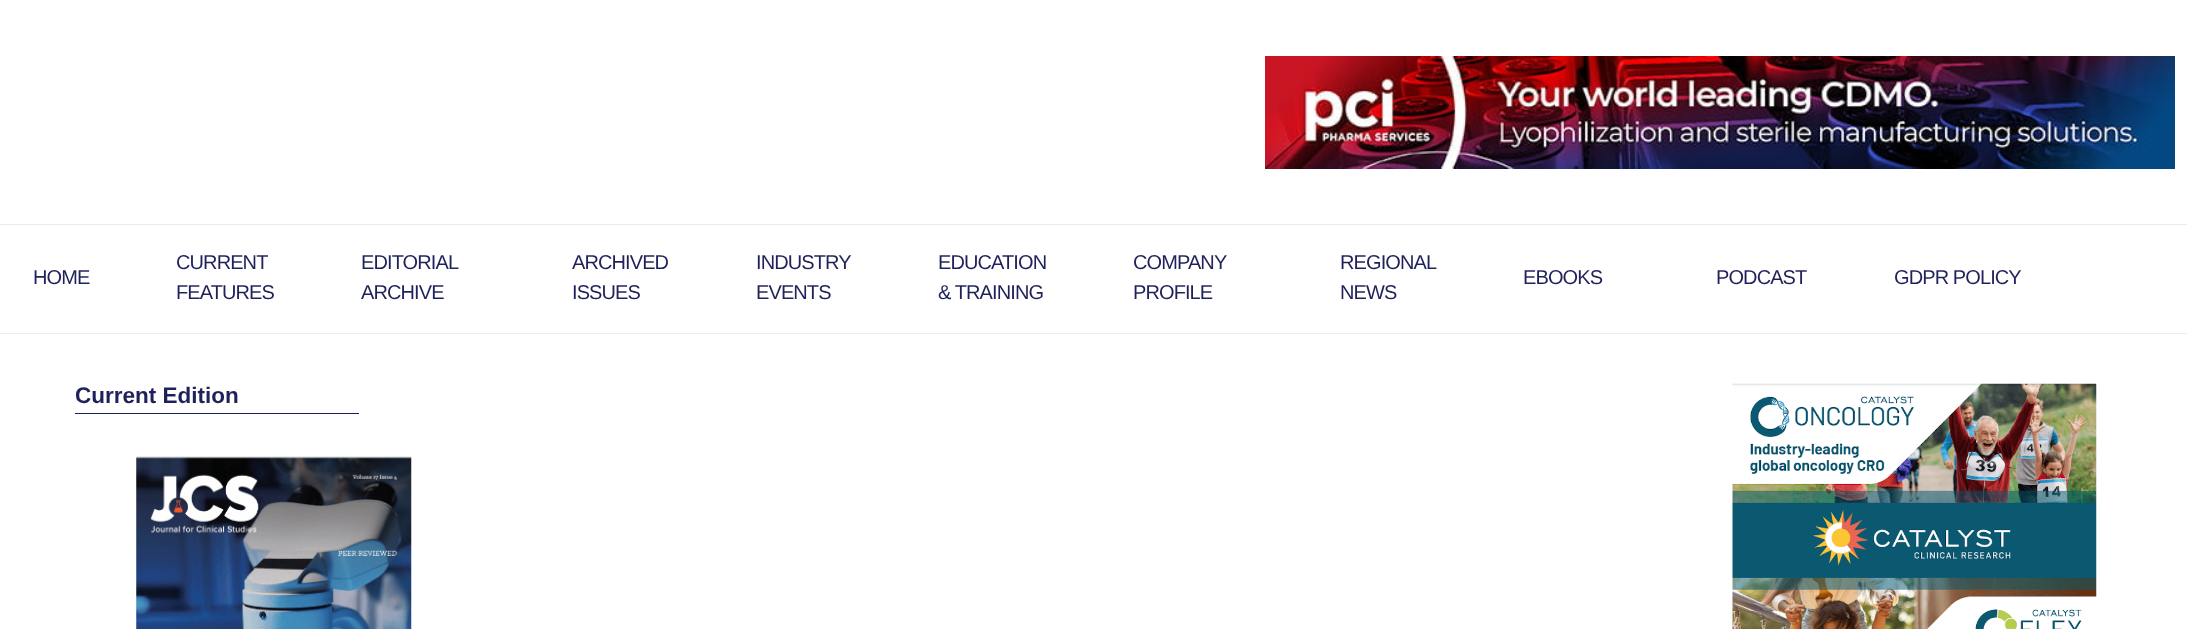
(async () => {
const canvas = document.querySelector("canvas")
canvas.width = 2187
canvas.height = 629
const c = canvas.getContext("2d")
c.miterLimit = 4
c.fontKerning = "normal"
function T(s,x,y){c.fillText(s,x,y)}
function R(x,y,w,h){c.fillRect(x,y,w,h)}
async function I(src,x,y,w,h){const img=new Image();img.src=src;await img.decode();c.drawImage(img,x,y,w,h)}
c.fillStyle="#fff"
R(0,0,2187,629)
await I("1.png",1265,56,910,113)
c.fillStyle="#ebebeb"
R(0,224,2187,1)
R(0,333,2187,1)
c.letterSpacing="-0.9px"
c.font="20px Liberation Sans"
c.fillStyle="#1f225a"
T("HOME",33,284)
T("CURRENT",176,269)
T("FEATURES",176,299)
T("EDITORIAL",361,269)
T("ARCHIVE",361,299)
T("ARCHIVED",572,269)
T("ISSUES",572,299)
T("INDUSTRY",756,269)
T("EVENTS",756,299)
T("EDUCATION",938,269)
T("& TRAINING",938,299)
T("COMPANY",1133,269)
T("PROFILE",1133,299)
T("REGIONAL",1340,269)
T("NEWS",1340,299)
T("EBOOKS",1523,284)
T("PODCAST",1716,284)
T("GDPR POLICY",1894,284)
c.letterSpacing="0px"
c.font="bold 22.5px Liberation Sans"
T("Current Edition",75,403)
R(75,413,284,1)
await I("2.png",136,456,276,173)
await I("3.png",1732,383,365,246)
})()
